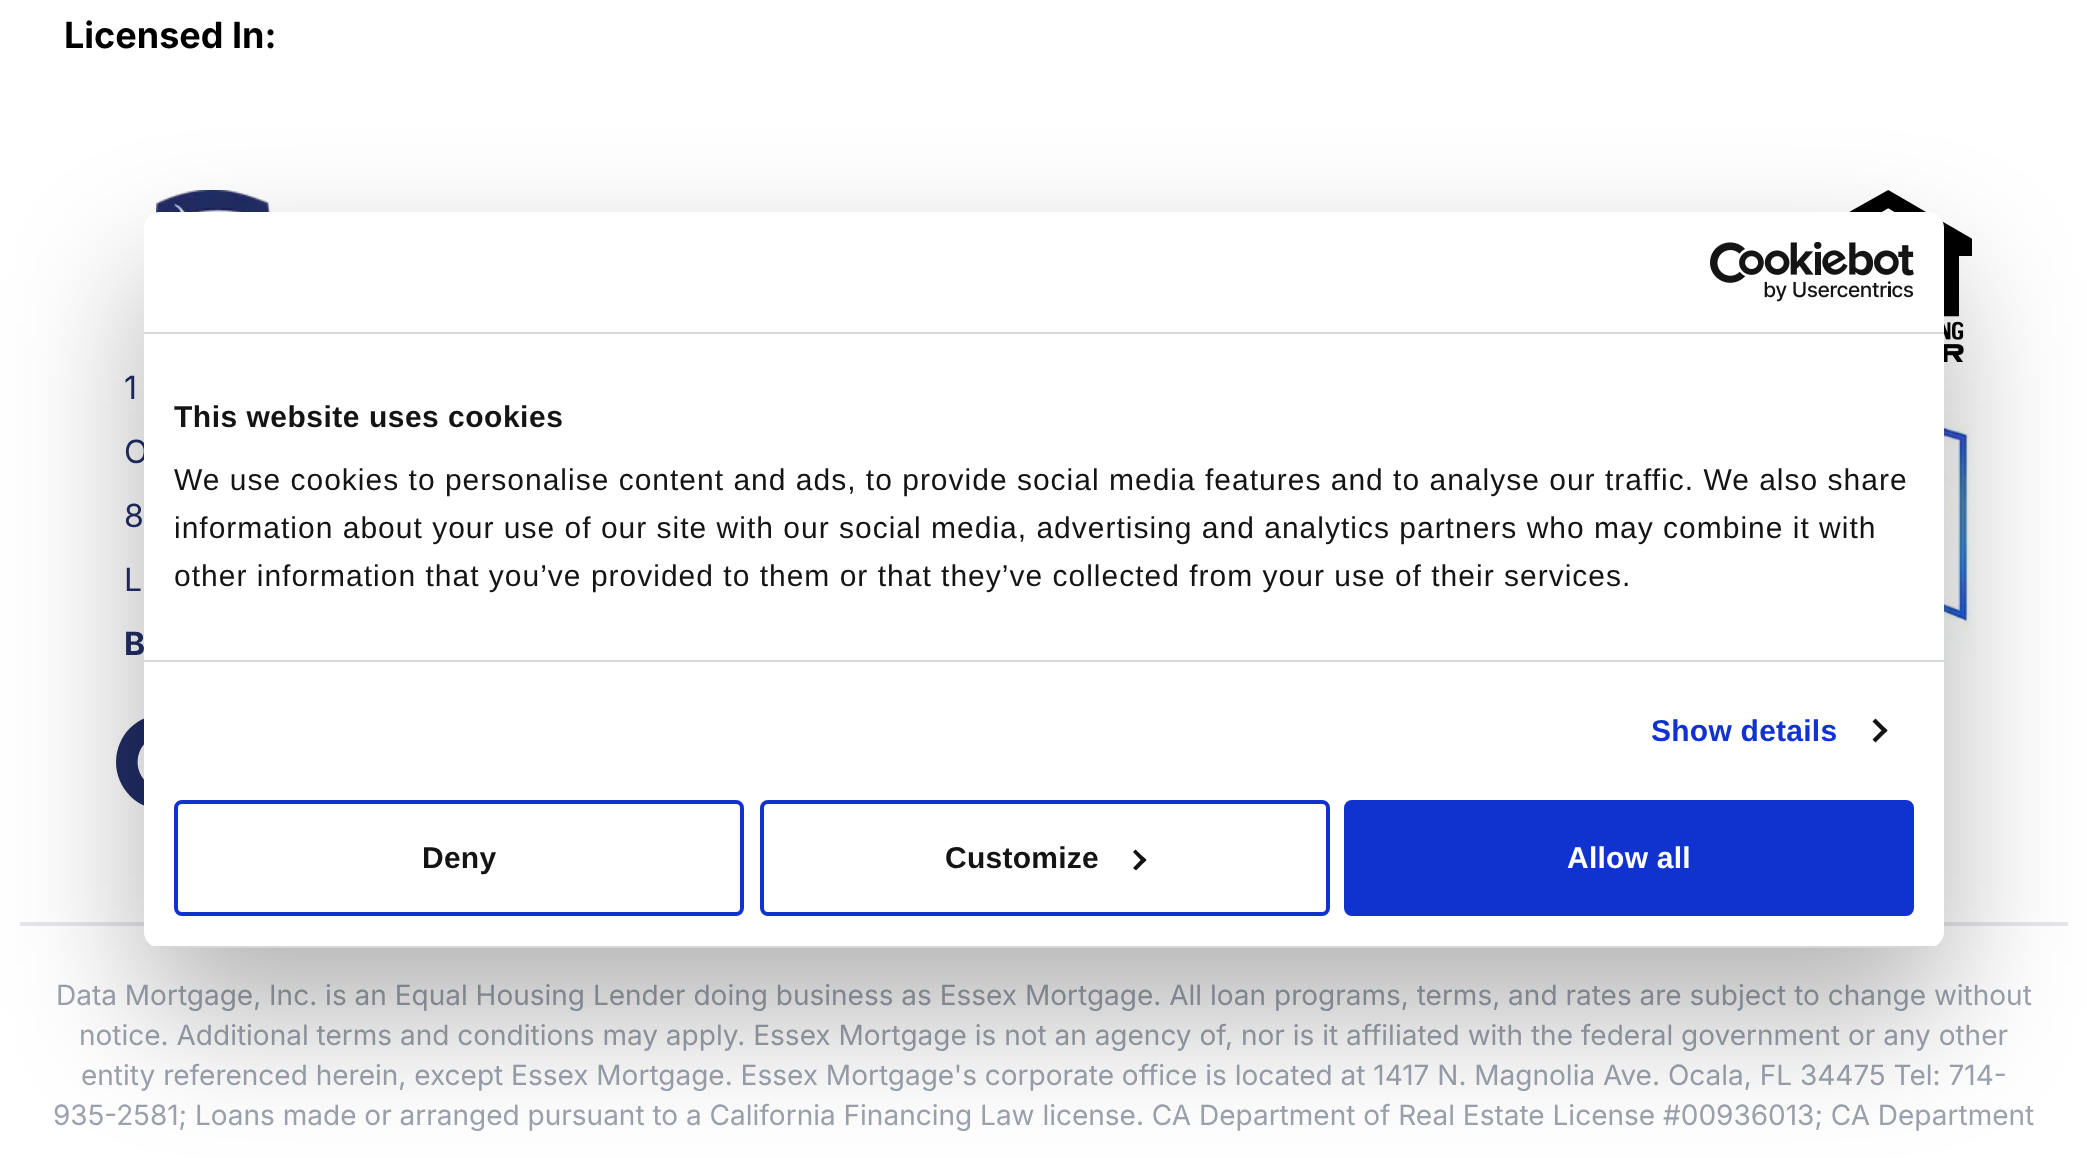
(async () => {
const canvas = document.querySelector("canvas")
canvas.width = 2087
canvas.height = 1158
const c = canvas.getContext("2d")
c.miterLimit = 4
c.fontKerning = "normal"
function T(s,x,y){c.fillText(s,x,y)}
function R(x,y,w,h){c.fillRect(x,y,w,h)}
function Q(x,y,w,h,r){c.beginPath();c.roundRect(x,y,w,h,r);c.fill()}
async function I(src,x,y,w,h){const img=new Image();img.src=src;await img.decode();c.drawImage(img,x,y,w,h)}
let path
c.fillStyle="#fff"
R(0,0,2087,1158)
c.font="bold 36px Inter"
c.fillStyle="#000"
T("Licensed In:",64,48)
await I("1.png",156,190,115,23)
c.font="32px Inter"
c.fillStyle="#212d65"
T("1",124,399)
T("O",124,463)
T("8",124,527)
T("L",124,591)
c.font="bold 32px Inter"
T("B",124,655)
c.beginPath()
c.arc(164,762,48,0,7)
c.fill()
await I("2.png",137,744,7,36)
await I("3.png",1849,190,123,172)
await I("4.png",1944,410,28,267)
c.fillStyle="#e5e7eb"
R(20,922,2048,4)
c.font="28px Inter"
c.fillStyle="#9ca3af"
T("Data Mortgage, Inc. is an Equal Housing Lender doing business as Essex Mortgage. All loan programs, terms, and rates are subject to change without",56,1005)
T("notice. Additional terms and conditions may apply. Essex Mortgage is not an agency of, nor is it affiliated with the federal government or any other",79,1045)
T("entity referenced herein, except Essex Mortgage. Essex Mortgage's corporate office is located at 1417 N. Magnolia Ave. Ocala, FL 34475 Tel: 714-",81,1085)
T("935-2581; Loans made or arranged pursuant to a California Financing Law license. CA Department of Real Estate License #00936013; CA Department",53,1125)
c.fillStyle="#0000004d"
c.filter="blur(68px)"
c.beginPath()
c.roundRect(144,276,1800,736,16)
c.fill()
c.filter="none"
c.fillStyle="#fff"
Q(144,212,1800,736,16)
c.fillStyle="#d6d6d6"
R(144,332,1800,2)
await I("5.png",1710,242,204,60)
R(144,660,1800,2)
c.letterSpacing="0.5px"
c.font="bold 30px Liberation Sans"
c.fillStyle="#141414"
T("This website uses cookies",174,427)
c.letterSpacing="1px"
c.font="30px Liberation Sans"
T("We use cookies to personalise content and ads, to provide social media features and to analyse our traffic. We also share",174,490)
T("information about your use of our site with our social media, advertising and analytics partners who may combine it with",174,538)
T("other information that you’ve provided to them or that they’ve collected from your use of their services.",174,586)
c.letterSpacing="0.25px"
c.font="bold 30px Liberation Sans"
c.fillStyle="#1032cf"
T("Show details",1651,741)
c.fillStyle="#141414"
path = new Path2D("M1875.5 718.5l12 12l-3 3l-12-12z")
c.fill(path)
path = new Path2D("M1884.5 727.5l3 3l-12 12l-3-3z")
c.fill(path)
c.save()
c.beginPath()
c.roundRect(144,212,1800,736,16)
c.clip()
c.fillStyle="#d6d6d6"
R(144,946,1800,2)
c.restore()
c.beginPath()
c.roundRect(176,802,566,112,6)
c.strokeStyle="#1032cf"
c.lineWidth=4
c.stroke()
T("Deny",422,868)
c.beginPath()
c.roundRect(762,802,566,112,6)
c.stroke()
T("Customize",945,868)
path = new Path2D("M1135.5 849.5l11 10.5l-3 3l-10.5-11z")
c.fill(path)
path = new Path2D("M1143.5 857l3 3l-10.5 10.5l-3-2.5z")
c.fill(path)
c.fillStyle="#1032cf"
c.beginPath()
c.roundRect(1346,802,566,112,6)
c.fill()
c.stroke()
c.fillStyle="#fff"
T("Allow all",1567,868)
})()
